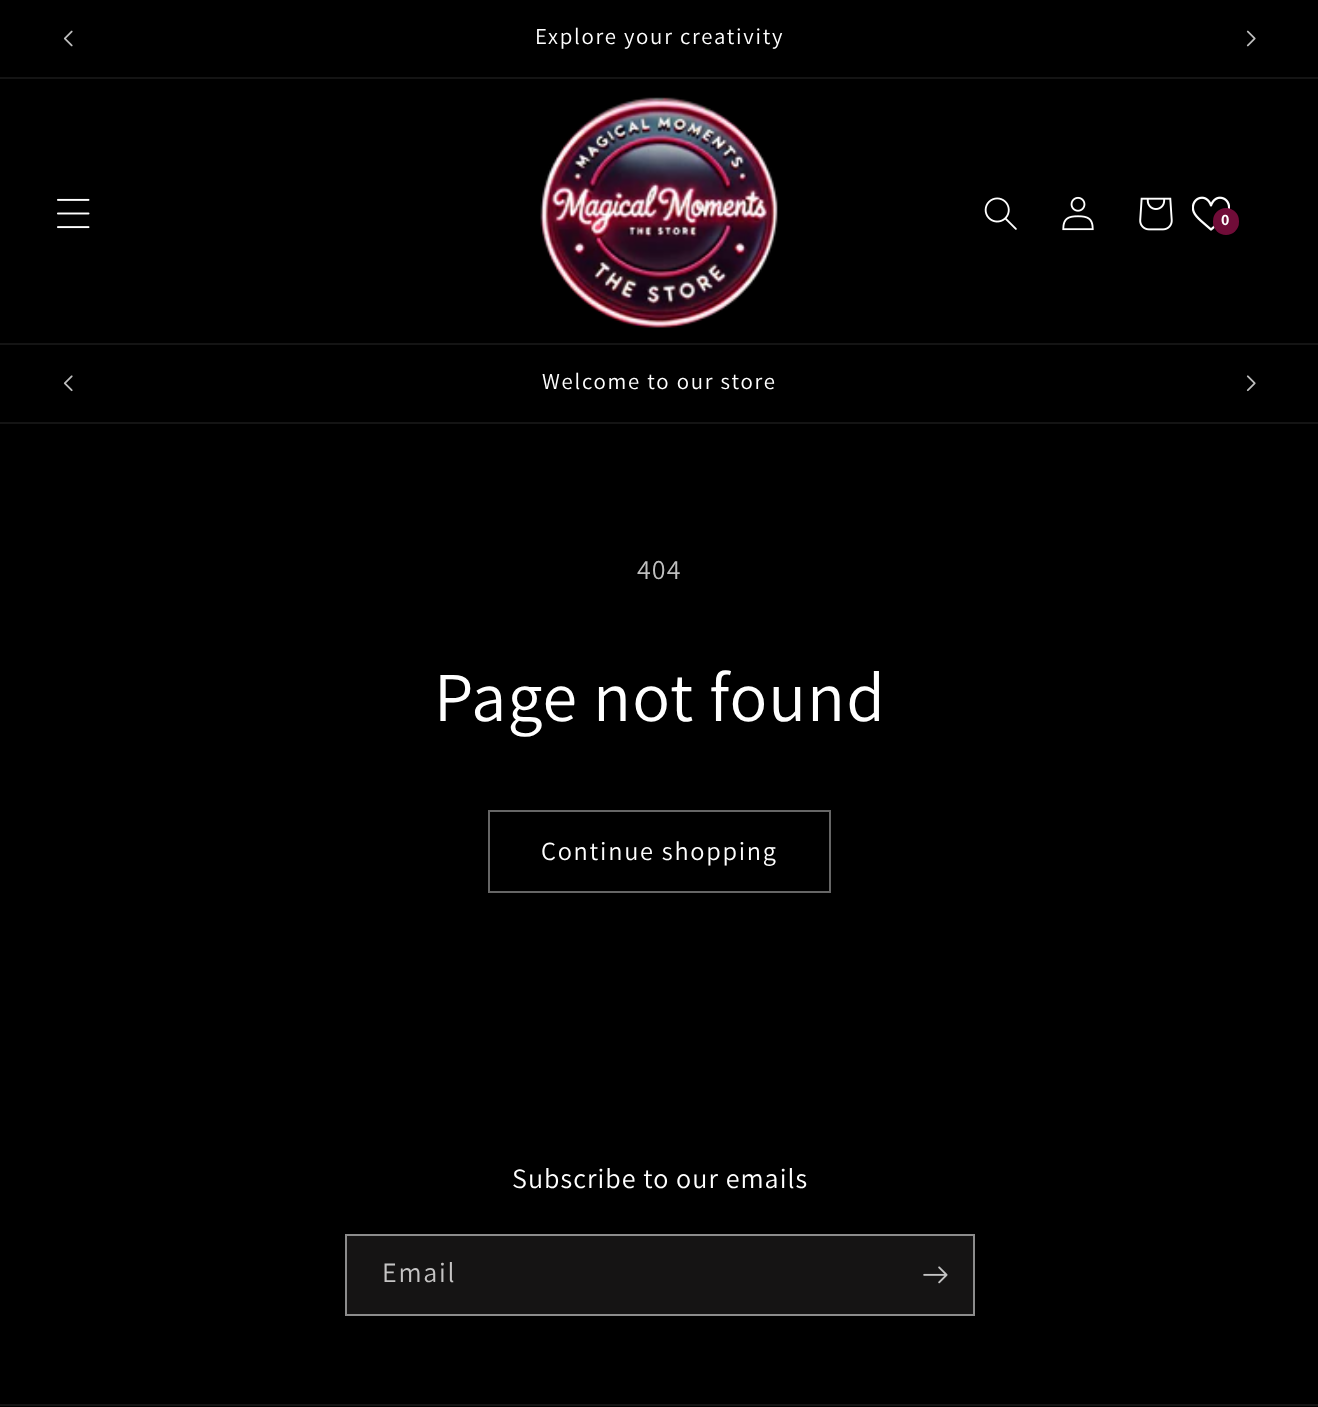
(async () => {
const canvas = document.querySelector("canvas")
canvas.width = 1318
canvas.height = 1407
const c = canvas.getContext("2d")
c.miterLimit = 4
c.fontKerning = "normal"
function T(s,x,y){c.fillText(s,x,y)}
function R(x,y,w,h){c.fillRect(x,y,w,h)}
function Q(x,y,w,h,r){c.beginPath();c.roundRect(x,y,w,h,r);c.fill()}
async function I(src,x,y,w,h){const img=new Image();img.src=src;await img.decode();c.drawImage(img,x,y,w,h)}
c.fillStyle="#000"
R(0,0,1318,1407)
c.fillStyle="#141414"
R(0,77,1318,2)
await I("1.png",63,30,10,17)
c.letterSpacing="1.75px"
c.font="22.75px Assistant"
c.fillStyle="#fff"
T("Explore your creativity",535,44)
await I("2.png",1246,30,10,17)
c.fillStyle="#141414"
R(0,343,1318,2)
await I("3.png",57,198,33,31)
await I("4.png",540,97,238,231)
await I("5.png",984,197,33,33)
await I("6.png",1062,196,32,35)
await I("7.png",1139,197,34,34)
await I("8.png",1192,196,38,35)
c.fillStyle="#700c38"
Q(1213,208,26,27,13)
c.letterSpacing="1.05px"
c.font="bold 16px Assistant"
c.fillStyle="#fff"
T("0",1221,225)
c.fillStyle="#141414"
R(0,422,1318,2)
await I("9.png",63,375,10,17)
c.letterSpacing="1.75px"
c.font="22.75px Assistant"
c.fillStyle="#fff"
T("Welcome to our store",542,389)
await I("10.png",1246,375,10,17)
c.letterSpacing="1.05px"
c.font="28px Assistant"
c.fillStyle="#bfbfbf"
T("404",637,579)
c.font="70px Assistant"
c.fillStyle="#fff"
T("Page not found",434,721)
c.strokeStyle="#666"
c.lineWidth=2
c.strokeRect(489,811,341,81)
c.letterSpacing="1.75px"
c.font="26.25px Assistant"
T("Continue shopping",541,860)
c.letterSpacing="1.05px"
c.font="28px Assistant"
T("Subscribe to our emails",512,1188)
c.fillStyle="#151414"
R(347,1236,626,78)
c.strokeStyle="#8c8c8c"
c.strokeRect(346,1235,628,80)
c.letterSpacing="1.75px"
c.fillStyle="#c5c4c4"
T("Email",382,1282)
await I("11.png",923,1266,25,18)
c.fillStyle="#141414"
R(0,1404,1318,2)
})()
